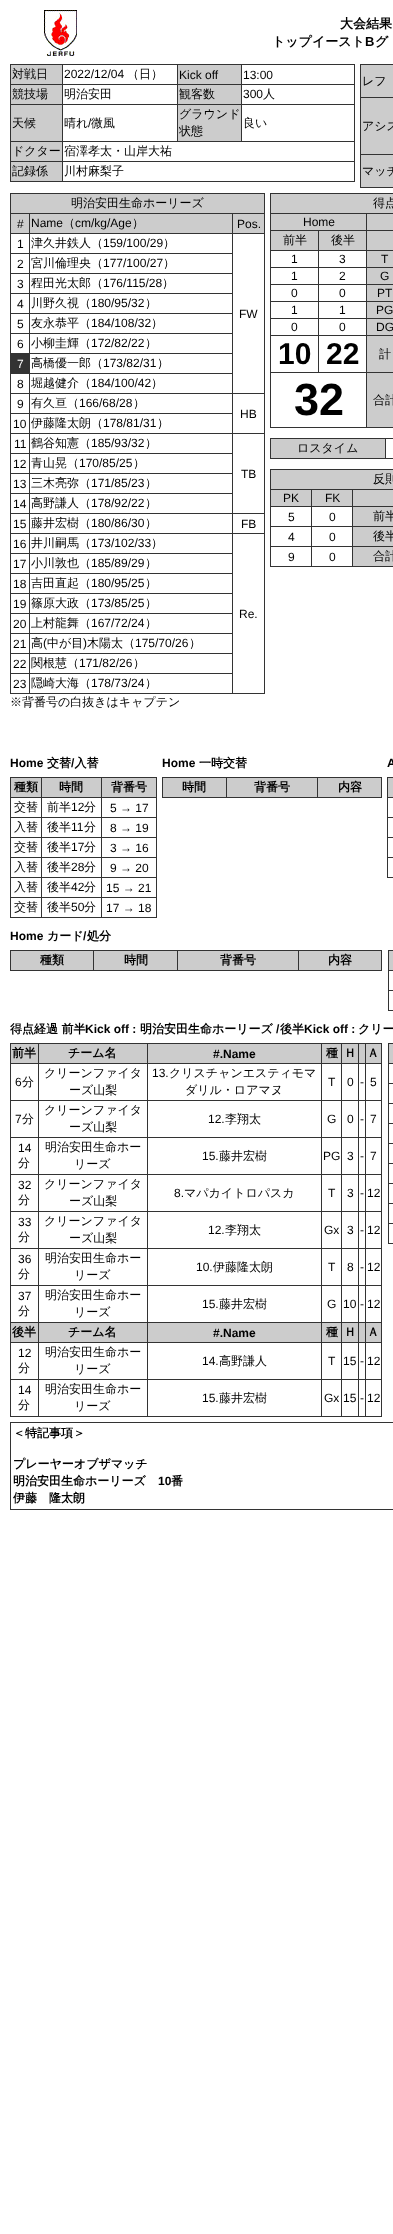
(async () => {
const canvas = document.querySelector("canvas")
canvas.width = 393
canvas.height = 2234
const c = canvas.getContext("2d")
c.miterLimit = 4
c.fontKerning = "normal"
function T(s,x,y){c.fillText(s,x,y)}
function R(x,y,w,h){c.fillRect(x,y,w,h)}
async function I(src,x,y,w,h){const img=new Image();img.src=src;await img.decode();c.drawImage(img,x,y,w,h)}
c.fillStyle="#fff"
R(0,0,393,2234)
await I("1.png",44,10,33,46)
c.font="bold 13px WenQuanYi Zen Hei"
c.fillStyle="#000"
T("大会結果",340,28)
T("トップイースト",272,46)
c.font="bold 13px Liberation Sans"
T("B",365,46)
c.font="bold 13px WenQuanYi Zen Hei"
T("グ",375,46)
c.fillStyle="#333"
R(10,64,345,1)
R(354,64,1,118)
R(10,181,345,1)
R(10,64,1,118)
c.fillStyle="#ccc"
R(11,65,51,19)
c.font="500 12px WenQuanYi Zen Hei"
c.fillStyle="#000"
T("対戦日",12,78)
c.fillStyle="#333"
R(241,84,114,1)
R(241,104,114,1)
R(62,141,293,1)
R(241,104,1,38)
R(177,104,65,1)
R(241,84,1,21)
R(177,84,65,1)
R(177,104,1,38)
R(62,104,116,1)
R(177,84,1,21)
R(62,84,116,1)
R(62,161,293,1)
R(62,161,1,21)
R(10,161,53,1)
R(62,141,1,21)
R(10,141,53,1)
R(62,104,1,38)
R(10,104,53,1)
R(62,84,1,21)
R(10,84,53,1)
R(62,64,1,21)
c.font="12px Liberation Sans"
c.fillStyle="#000"
T("2022/12/04",64,78)
c.font="500 12px WenQuanYi Zen Hei"
T("（日）",127,78)
c.fillStyle="#ccc"
R(178,65,63,19)
c.fillStyle="#333"
R(177,64,1,21)
c.font="12px Liberation Sans"
c.fillStyle="#000"
T("Kick off",179,79)
c.fillStyle="#333"
R(241,64,1,21)
c.fillStyle="#000"
T("13:00",243,79)
c.fillStyle="#ccc"
R(11,85,51,19)
c.font="500 12px WenQuanYi Zen Hei"
c.fillStyle="#000"
T("競技場",12,98)
T("明治安田",64,98)
c.fillStyle="#ccc"
R(178,85,63,19)
c.fillStyle="#000"
T("観客数",179,98)
c.font="12px Liberation Sans"
T("300",243,98)
c.font="500 12px WenQuanYi Zen Hei"
T("人",263,98)
c.fillStyle="#ccc"
R(11,105,51,36)
c.fillStyle="#000"
T("天候",12,127)
T("晴れ",64,127)
c.font="12px Liberation Sans"
T("/",88,127)
c.font="500 12px WenQuanYi Zen Hei"
T("微風",91,127)
c.fillStyle="#ccc"
R(178,105,63,36)
c.fillStyle="#000"
T("グラウンド",179,118)
T("状態",179,135)
T("良い",243,127)
c.fillStyle="#ccc"
R(11,142,51,19)
c.fillStyle="#000"
T("ドクター",12,155)
T("宿澤孝太・山岸大祐",64,155)
c.fillStyle="#ccc"
R(11,162,51,19)
c.fillStyle="#000"
T("記録係",12,175)
T("川村麻梨子",64,175)
c.fillStyle="#333"
R(360,64,33,1)
R(360,187,33,1)
R(360,64,1,124)
c.fillStyle="#ccc"
R(361,65,32,32)
c.fillStyle="#000"
T("レフ",362,85)
c.fillStyle="#ccc"
R(361,98,32,56)
c.fillStyle="#333"
R(360,97,33,1)
c.fillStyle="#000"
T("アシス",362,130)
c.fillStyle="#ccc"
R(361,155,32,32)
c.fillStyle="#333"
R(360,154,33,1)
c.fillStyle="#000"
T("マッチ",362,175)
c.fillStyle="#333"
R(10,193,255,1)
R(264,193,1,501)
R(10,693,255,1)
R(10,193,1,501)
c.fillStyle="#ccc"
R(11,194,253,19)
c.fillStyle="#000"
T("明治安田生命ホーリーズ",71,207)
c.fillStyle="#ccc"
R(11,214,18,19)
c.fillStyle="#333"
R(29,213,236,1)
R(29,233,236,1)
R(29,253,204,1)
R(29,273,204,1)
R(29,293,204,1)
R(29,313,204,1)
R(29,333,204,1)
R(10,353,223,1)
R(29,333,1,21)
R(10,333,20,1)
R(29,313,1,21)
R(10,313,20,1)
R(29,293,1,21)
R(10,293,20,1)
R(29,273,1,21)
R(10,273,20,1)
R(29,253,1,21)
R(10,253,20,1)
R(29,233,1,21)
R(10,233,20,1)
R(29,213,1,21)
R(10,213,20,1)
c.font="12px Liberation Sans"
c.fillStyle="#000"
T("#",17,228)
c.fillStyle="#ccc"
R(30,214,202,19)
c.fillStyle="#333"
R(11,354,19,20)
R(29,373,204,1)
R(29,393,236,1)
R(29,413,204,1)
R(29,433,236,1)
R(29,453,204,1)
R(29,473,204,1)
R(29,493,204,1)
R(29,513,236,1)
R(29,533,236,1)
R(29,553,204,1)
R(29,573,204,1)
R(29,593,204,1)
R(29,613,204,1)
R(29,633,204,1)
R(29,653,204,1)
R(29,673,204,1)
R(232,673,1,21)
R(232,653,1,21)
R(232,633,1,21)
R(232,613,1,21)
R(232,593,1,21)
R(232,573,1,21)
R(232,553,1,21)
R(232,533,1,21)
R(232,513,1,21)
R(232,493,1,21)
R(232,473,1,21)
R(232,453,1,21)
R(232,433,1,21)
R(232,413,1,21)
R(232,393,1,21)
R(232,373,1,21)
R(232,353,1,21)
R(232,333,1,21)
R(232,313,1,21)
R(232,293,1,21)
R(232,273,1,21)
R(232,253,1,21)
R(232,233,1,21)
R(232,213,1,21)
c.fillStyle="#000"
T("Name",31,227)
c.font="500 12px WenQuanYi Zen Hei"
T("（",63,227)
c.font="12px Liberation Sans"
T("cm/kg/Age",75,227)
c.font="500 12px WenQuanYi Zen Hei"
T("）",132,227)
c.fillStyle="#ccc"
R(233,214,31,19)
c.font="12px Liberation Sans"
c.fillStyle="#000"
T("Pos.",237,228)
T("1",17,248)
c.font="500 12px WenQuanYi Zen Hei"
T("津久井鉄人（",31,247)
c.font="12px Liberation Sans"
T("159/100/29",103,247)
c.font="500 12px WenQuanYi Zen Hei"
T("）",163,247)
c.font="12px Liberation Sans"
T("FW",239,318)
T("2",17,268)
c.font="500 12px WenQuanYi Zen Hei"
T("宮川倫理央（",31,267)
c.font="12px Liberation Sans"
T("177/100/27",103,267)
c.font="500 12px WenQuanYi Zen Hei"
T("）",163,267)
c.font="12px Liberation Sans"
T("3",17,288)
c.font="500 12px WenQuanYi Zen Hei"
T("程田光太郎（",31,287)
c.font="12px Liberation Sans"
T("176/115/28",103,287)
c.font="500 12px WenQuanYi Zen Hei"
T("）",162,287)
c.font="12px Liberation Sans"
T("4",17,308)
c.font="500 12px WenQuanYi Zen Hei"
T("川野久視（",31,307)
c.font="12px Liberation Sans"
T("180/95/32",91,307)
c.font="500 12px WenQuanYi Zen Hei"
T("）",145,307)
c.font="12px Liberation Sans"
T("5",17,328)
c.font="500 12px WenQuanYi Zen Hei"
T("友永恭平（",31,327)
c.font="12px Liberation Sans"
T("184/108/32",91,327)
c.font="500 12px WenQuanYi Zen Hei"
T("）",151,327)
c.font="12px Liberation Sans"
T("6",17,348)
c.font="500 12px WenQuanYi Zen Hei"
T("小柳圭輝（",31,347)
c.font="12px Liberation Sans"
T("172/82/22",91,347)
c.font="500 12px WenQuanYi Zen Hei"
T("）",145,347)
c.font="12px Liberation Sans"
c.fillStyle="#fff"
T("7",17,368)
c.font="500 12px WenQuanYi Zen Hei"
c.fillStyle="#000"
T("高橋優一郎（",31,367)
c.font="12px Liberation Sans"
T("173/82/31",103,367)
c.font="500 12px WenQuanYi Zen Hei"
T("）",157,367)
c.font="12px Liberation Sans"
T("8",17,388)
c.fillStyle="#333"
R(29,673,1,21)
R(10,673,20,1)
R(29,653,1,21)
R(10,653,20,1)
R(29,633,1,21)
R(10,633,20,1)
R(29,613,1,21)
R(10,613,20,1)
R(29,593,1,21)
R(10,593,20,1)
R(29,573,1,21)
R(10,573,20,1)
R(29,553,1,21)
R(10,553,20,1)
R(29,533,1,21)
R(10,533,20,1)
R(29,513,1,21)
R(10,513,20,1)
R(29,493,1,21)
R(10,493,20,1)
R(29,473,1,21)
R(10,473,20,1)
R(29,453,1,21)
R(10,453,20,1)
R(29,433,1,21)
R(10,433,20,1)
R(29,413,1,21)
R(10,413,20,1)
R(29,393,1,21)
R(10,393,20,1)
R(29,373,1,21)
c.font="500 12px WenQuanYi Zen Hei"
c.fillStyle="#000"
T("堀越健介（",31,387)
c.font="12px Liberation Sans"
T("184/100/42",91,387)
c.font="500 12px WenQuanYi Zen Hei"
T("）",151,387)
c.font="12px Liberation Sans"
T("9",17,408)
c.font="500 12px WenQuanYi Zen Hei"
T("有久亘（",31,407)
c.font="12px Liberation Sans"
T("166/68/28",79,407)
c.font="500 12px WenQuanYi Zen Hei"
T("）",133,407)
c.font="12px Liberation Sans"
T("HB",240,418)
T("10",13,428)
c.font="500 12px WenQuanYi Zen Hei"
T("伊藤隆太朗（",31,427)
c.font="12px Liberation Sans"
T("178/81/31",103,427)
c.font="500 12px WenQuanYi Zen Hei"
T("）",157,427)
c.font="12px Liberation Sans"
T("11",14,448)
c.font="500 12px WenQuanYi Zen Hei"
T("鶴谷知憲（",31,447)
c.font="12px Liberation Sans"
T("185/93/32",91,447)
c.font="500 12px WenQuanYi Zen Hei"
T("）",145,447)
c.font="12px Liberation Sans"
T("TB",241,478)
T("12",13,468)
c.font="500 12px WenQuanYi Zen Hei"
T("青山晃（",31,467)
c.font="12px Liberation Sans"
T("170/85/25",79,467)
c.font="500 12px WenQuanYi Zen Hei"
T("）",133,467)
c.font="12px Liberation Sans"
T("13",13,488)
c.font="500 12px WenQuanYi Zen Hei"
T("三木亮弥（",31,487)
c.font="12px Liberation Sans"
T("171/85/23",91,487)
c.font="500 12px WenQuanYi Zen Hei"
T("）",145,487)
c.font="12px Liberation Sans"
T("14",13,508)
c.font="500 12px WenQuanYi Zen Hei"
T("高野謙人（",31,507)
c.font="12px Liberation Sans"
T("178/92/22",91,507)
c.font="500 12px WenQuanYi Zen Hei"
T("）",145,507)
c.font="12px Liberation Sans"
T("15",13,528)
c.font="500 12px WenQuanYi Zen Hei"
T("藤井宏樹（",31,527)
c.font="12px Liberation Sans"
T("180/86/30",91,527)
c.font="500 12px WenQuanYi Zen Hei"
T("）",145,527)
c.font="12px Liberation Sans"
T("FB",241,528)
T("16",13,548)
c.font="500 12px WenQuanYi Zen Hei"
T("井川嗣馬（",31,547)
c.font="12px Liberation Sans"
T("173/102/33",91,547)
c.font="500 12px WenQuanYi Zen Hei"
T("）",151,547)
c.font="12px Liberation Sans"
T("Re.",239,618)
T("17",13,568)
c.font="500 12px WenQuanYi Zen Hei"
T("小川敦也（",31,567)
c.font="12px Liberation Sans"
T("185/89/29",91,567)
c.font="500 12px WenQuanYi Zen Hei"
T("）",145,567)
c.font="12px Liberation Sans"
T("18",13,588)
c.font="500 12px WenQuanYi Zen Hei"
T("吉田直起（",31,587)
c.font="12px Liberation Sans"
T("180/95/25",91,587)
c.font="500 12px WenQuanYi Zen Hei"
T("）",145,587)
c.font="12px Liberation Sans"
T("19",13,608)
c.font="500 12px WenQuanYi Zen Hei"
T("篠原大政（",31,607)
c.font="12px Liberation Sans"
T("173/85/25",91,607)
c.font="500 12px WenQuanYi Zen Hei"
T("）",145,607)
c.font="12px Liberation Sans"
T("20",13,628)
c.font="500 12px WenQuanYi Zen Hei"
T("上村龍舞（",31,627)
c.font="12px Liberation Sans"
T("167/72/24",91,627)
c.font="500 12px WenQuanYi Zen Hei"
T("）",145,627)
c.font="12px Liberation Sans"
T("21",13,648)
c.font="500 12px WenQuanYi Zen Hei"
T("高",31,647)
c.font="12px Liberation Sans"
T("(",43,647)
c.font="500 12px WenQuanYi Zen Hei"
T("中が目",47,647)
c.font="12px Liberation Sans"
T(")",83,647)
c.font="500 12px WenQuanYi Zen Hei"
T("木陽太（",87,647)
c.font="12px Liberation Sans"
T("175/70/26",135,647)
c.font="500 12px WenQuanYi Zen Hei"
T("）",189,647)
c.font="12px Liberation Sans"
T("22",13,668)
c.font="500 12px WenQuanYi Zen Hei"
T("関根慧（",31,667)
c.font="12px Liberation Sans"
T("171/82/26",79,667)
c.font="500 12px WenQuanYi Zen Hei"
T("）",133,667)
c.font="12px Liberation Sans"
T("23",13,688)
c.font="500 12px WenQuanYi Zen Hei"
T("隠崎大海（",31,687)
c.font="12px Liberation Sans"
T("178/73/24",91,687)
c.font="500 12px WenQuanYi Zen Hei"
T("）",145,687)
T("※背番号の白抜きはキャプテン",10,706)
c.fillStyle="#333"
R(270,193,123,1)
R(270,427,123,1)
R(270,193,1,235)
c.fillStyle="#ccc"
R(271,194,122,19)
c.fillStyle="#000"
T("得点",373,207)
c.fillStyle="#ccc"
R(271,214,95,16)
c.fillStyle="#333"
R(366,213,27,1)
R(366,230,27,1)
R(366,250,27,1)
R(366,267,27,1)
R(366,284,27,1)
R(366,301,27,1)
R(366,318,27,1)
R(366,335,27,1)
R(366,372,27,1)
R(366,372,1,56)
R(270,372,97,1)
R(366,335,1,38)
R(318,335,49,1)
R(366,318,1,18)
R(318,318,49,1)
R(366,301,1,18)
R(318,301,49,1)
R(366,284,1,18)
R(318,284,49,1)
R(366,267,1,18)
R(318,267,49,1)
R(366,250,1,18)
R(318,250,49,1)
R(366,230,1,21)
R(318,230,49,1)
R(366,213,1,18)
R(270,213,97,1)
c.font="12px Liberation Sans"
c.fillStyle="#000"
T("Home",303,226)
c.fillStyle="#ccc"
R(367,214,26,16)
R(271,231,47,19)
c.fillStyle="#333"
R(318,335,1,38)
R(270,335,49,1)
R(318,318,1,18)
R(270,318,49,1)
R(318,301,1,18)
R(270,301,49,1)
R(318,284,1,18)
R(270,284,49,1)
R(318,267,1,18)
R(270,267,49,1)
R(318,250,1,18)
R(270,250,49,1)
R(318,230,1,21)
R(270,230,49,1)
c.font="500 12px WenQuanYi Zen Hei"
c.fillStyle="#000"
T("前半",283,244)
c.fillStyle="#ccc"
R(319,231,47,19)
c.fillStyle="#000"
T("後半",331,244)
c.fillStyle="#ccc"
R(367,231,26,19)
c.font="12px Liberation Sans"
c.fillStyle="#000"
T("1",291,263)
T("3",339,263)
c.fillStyle="#ccc"
R(367,251,26,16)
c.fillStyle="#000"
T("T",381,263)
T("1",291,280)
T("2",339,280)
c.fillStyle="#ccc"
R(367,268,26,16)
c.fillStyle="#000"
T("G",380,280)
T("0",291,297)
T("0",339,297)
c.fillStyle="#ccc"
R(367,285,26,16)
c.fillStyle="#000"
T("PT",377,297)
T("1",291,314)
T("1",339,314)
c.fillStyle="#ccc"
R(367,302,26,16)
c.fillStyle="#000"
T("PG",376,314)
T("0",291,331)
T("0",339,331)
c.fillStyle="#ccc"
R(367,319,26,16)
c.fillStyle="#000"
T("DG",376,331)
c.font="bold 30px Liberation Sans"
T("10",278,364)
T("22",326,364)
c.fillStyle="#ccc"
R(367,336,26,36)
c.font="500 12px WenQuanYi Zen Hei"
c.fillStyle="#000"
T("計",379,358)
c.font="bold 45px Liberation Sans"
T("32",294,415)
c.fillStyle="#ccc"
R(367,373,26,54)
c.font="500 12px WenQuanYi Zen Hei"
c.fillStyle="#000"
T("合計",373,404)
c.fillStyle="#333"
R(270,438,123,1)
R(270,458,123,1)
R(270,438,1,21)
c.fillStyle="#ccc"
R(271,439,114,19)
c.fillStyle="#000"
T("ロスタイム",297,452)
c.fillStyle="#333"
R(385,438,1,21)
R(270,469,123,1)
R(270,566,123,1)
R(270,469,1,98)
c.fillStyle="#ccc"
R(271,470,122,19)
c.fillStyle="#000"
T("反則",373,483)
c.fillStyle="#ccc"
R(271,490,40,16)
c.fillStyle="#333"
R(352,489,41,1)
R(352,506,41,1)
R(352,526,41,1)
R(352,546,41,1)
R(352,546,1,21)
R(311,546,42,1)
R(352,526,1,21)
R(311,526,42,1)
R(352,506,1,21)
R(311,506,42,1)
R(352,489,1,18)
R(311,489,42,1)
R(311,546,1,21)
R(270,546,42,1)
R(311,526,1,21)
R(270,526,42,1)
R(311,506,1,21)
R(270,506,42,1)
R(311,489,1,18)
R(270,489,42,1)
c.font="12px Liberation Sans"
c.fillStyle="#000"
T("PK",283,502)
c.fillStyle="#ccc"
R(312,490,40,16)
c.fillStyle="#000"
T("FK",325,502)
c.fillStyle="#ccc"
R(353,490,40,16)
c.fillStyle="#000"
T("5",288,521)
T("0",329,521)
c.fillStyle="#ccc"
R(353,507,40,19)
c.font="500 12px WenQuanYi Zen Hei"
c.fillStyle="#000"
T("前半",373,520)
c.font="12px Liberation Sans"
T("4",288,541)
T("0",329,541)
c.fillStyle="#ccc"
R(353,527,40,19)
c.font="500 12px WenQuanYi Zen Hei"
c.fillStyle="#000"
T("後半",373,540)
c.font="12px Liberation Sans"
T("9",288,561)
T("0",329,561)
c.fillStyle="#ccc"
R(353,547,40,19)
c.font="500 12px WenQuanYi Zen Hei"
c.fillStyle="#000"
T("合計",373,560)
c.font="bold 12px Liberation Sans"
T("Home",10,767)
c.font="bold 12px WenQuanYi Zen Hei"
T("交替 入替",47,767)
c.font="bold 12px Liberation Sans"
T("/",71,767)
c.fillStyle="#333"
R(10,777,147,1)
R(156,777,1,141)
R(10,917,147,1)
R(10,777,1,141)
c.fillStyle="#ccc"
R(11,778,30,19)
c.font="bold 12px WenQuanYi Zen Hei"
c.fillStyle="#000"
T("種類",14,791)
c.fillStyle="#ccc"
R(42,778,59,19)
c.fillStyle="#333"
R(101,797,56,1)
R(101,817,56,1)
R(101,837,56,1)
R(101,857,56,1)
R(101,877,56,1)
R(101,897,56,1)
R(101,897,1,21)
R(41,897,61,1)
R(101,877,1,21)
R(41,877,61,1)
R(101,857,1,21)
R(41,857,61,1)
R(101,837,1,21)
R(41,837,61,1)
R(101,817,1,21)
R(41,817,61,1)
R(101,797,1,21)
R(41,797,61,1)
R(41,897,1,21)
R(10,897,32,1)
R(41,877,1,21)
R(10,877,32,1)
R(41,857,1,21)
R(10,857,32,1)
R(41,837,1,21)
R(10,837,32,1)
R(41,817,1,21)
R(10,817,32,1)
R(41,797,1,21)
R(10,797,32,1)
R(41,777,1,21)
c.fillStyle="#000"
T("時間",59,791)
c.fillStyle="#ccc"
R(102,778,54,19)
c.fillStyle="#333"
R(101,777,1,21)
c.fillStyle="#000"
T("背番号",111,791)
c.font="500 12px WenQuanYi Zen Hei"
T("交替",14,811)
T("前半",47,811)
c.font="12px Liberation Sans"
T("12",71,811)
c.font="500 12px WenQuanYi Zen Hei"
T("分",84,811)
c.font="12px Liberation Sans"
T("5 → 17",110,812)
c.font="500 12px WenQuanYi Zen Hei"
T("入替",14,831)
T("後半",47,831)
c.font="12px Liberation Sans"
T("11",71,831)
c.font="500 12px WenQuanYi Zen Hei"
T("分",84,831)
c.font="12px Liberation Sans"
T("8 → 19",110,832)
c.font="500 12px WenQuanYi Zen Hei"
T("交替",14,851)
T("後半",47,851)
c.font="12px Liberation Sans"
T("17",71,851)
c.font="500 12px WenQuanYi Zen Hei"
T("分",84,851)
c.font="12px Liberation Sans"
T("3 → 16",110,852)
c.font="500 12px WenQuanYi Zen Hei"
T("入替",14,871)
T("後半",47,871)
c.font="12px Liberation Sans"
T("28",71,871)
c.font="500 12px WenQuanYi Zen Hei"
T("分",84,871)
c.font="12px Liberation Sans"
T("9 → 20",110,872)
c.font="500 12px WenQuanYi Zen Hei"
T("入替",14,891)
T("後半",47,891)
c.font="12px Liberation Sans"
T("42",71,891)
c.font="500 12px WenQuanYi Zen Hei"
T("分",84,891)
c.font="12px Liberation Sans"
T("15 → 21",106,892)
c.font="500 12px WenQuanYi Zen Hei"
T("交替",14,911)
T("後半",47,911)
c.font="12px Liberation Sans"
T("50",71,911)
c.font="500 12px WenQuanYi Zen Hei"
T("分",84,911)
c.font="12px Liberation Sans"
T("17 → 18",106,912)
c.font="bold 12px Liberation Sans"
T("Home",162,767)
c.font="bold 12px WenQuanYi Zen Hei"
T("一時交替",199,767)
c.fillStyle="#333"
R(162,777,220,1)
R(381,777,1,21)
R(162,797,220,1)
R(162,777,1,21)
c.fillStyle="#ccc"
R(163,778,63,19)
c.fillStyle="#000"
T("時間",182,791)
c.fillStyle="#ccc"
R(227,778,90,19)
c.fillStyle="#333"
R(226,777,1,21)
c.fillStyle="#000"
T("背番号",254,791)
c.fillStyle="#ccc"
R(318,778,63,19)
c.fillStyle="#333"
R(317,777,1,21)
c.fillStyle="#000"
T("内容",338,791)
c.font="bold 12px Liberation Sans"
T("A",387,767)
c.fillStyle="#333"
R(387,777,6,1)
R(387,877,6,1)
R(387,777,1,101)
c.fillStyle="#ccc"
R(388,778,5,20)
c.fillStyle="#333"
R(387,797,6,1)
R(387,817,6,1)
R(387,837,6,1)
R(387,857,6,1)
c.fillStyle="#000"
T("Home",10,940)
c.font="bold 12px WenQuanYi Zen Hei"
T("カード",47,940)
c.font="bold 12px Liberation Sans"
T("/",83,940)
c.font="bold 12px WenQuanYi Zen Hei"
T("処分",87,940)
c.fillStyle="#333"
R(10,950,372,1)
R(381,950,1,21)
R(10,970,372,1)
R(10,950,1,21)
c.fillStyle="#ccc"
R(11,951,82,19)
c.fillStyle="#000"
T("種類",40,964)
c.fillStyle="#ccc"
R(94,951,83,19)
c.fillStyle="#333"
R(93,950,1,21)
c.fillStyle="#000"
T("時間",124,964)
c.fillStyle="#ccc"
R(178,951,120,19)
c.fillStyle="#333"
R(177,950,1,21)
c.fillStyle="#000"
T("背番号",220,964)
c.fillStyle="#ccc"
R(299,951,82,19)
c.fillStyle="#333"
R(298,950,1,21)
c.fillStyle="#000"
T("内容",328,964)
c.fillStyle="#333"
R(388,950,5,1)
R(388,1010,5,1)
R(388,950,1,61)
c.fillStyle="#ccc"
R(389,951,4,20)
c.fillStyle="#333"
R(388,970,5,1)
R(388,990,5,1)
c.fillStyle="#000"
T("得点経過 前半",10,1033)
c.font="bold 12px Liberation Sans"
T("Kick off :",85,1033)
c.font="bold 12px WenQuanYi Zen Hei"
T("明治安田生命ホーリーズ",140,1033)
c.font="bold 12px Liberation Sans"
T("/",276,1033)
c.font="bold 12px WenQuanYi Zen Hei"
T("後半",280,1033)
c.font="bold 12px Liberation Sans"
T("Kick off :",304,1033)
c.font="bold 12px WenQuanYi Zen Hei"
T("クリー",358,1033)
c.fillStyle="#333"
R(10,1043,372,1)
R(381,1043,1,374)
R(10,1416,372,1)
R(10,1043,1,374)
c.fillStyle="#ccc"
R(11,1044,27,19)
c.fillStyle="#000"
T("前半",12,1057)
c.fillStyle="#ccc"
R(39,1044,108,19)
R(359,1044,6,20)
c.fillStyle="#333"
R(365,1063,17,1)
R(365,1100,17,1)
R(365,1137,17,1)
R(365,1174,17,1)
R(365,1211,17,1)
R(365,1248,17,1)
R(365,1285,17,1)
R(365,1322,17,1)
c.fillStyle="#ccc"
R(359,1323,6,20)
c.fillStyle="#333"
R(365,1342,17,1)
R(365,1379,17,1)
R(365,1379,1,38)
R(358,1379,8,1)
R(365,1342,1,38)
R(358,1342,8,1)
R(365,1322,1,21)
R(358,1322,8,1)
R(365,1285,1,38)
R(358,1285,8,1)
R(365,1248,1,38)
R(358,1248,8,1)
R(365,1211,1,38)
R(358,1211,8,1)
R(365,1174,1,38)
R(358,1174,8,1)
R(365,1137,1,38)
R(358,1137,8,1)
R(365,1100,1,38)
R(358,1100,8,1)
R(365,1063,1,38)
R(358,1063,8,1)
R(358,1379,1,38)
R(341,1379,18,1)
R(358,1342,1,38)
R(341,1342,18,1)
R(358,1322,1,21)
R(341,1322,18,1)
R(358,1285,1,38)
R(341,1285,18,1)
R(358,1248,1,38)
R(341,1248,18,1)
R(358,1211,1,38)
R(341,1211,18,1)
R(358,1174,1,38)
R(341,1174,18,1)
R(358,1137,1,38)
R(341,1137,18,1)
R(358,1100,1,38)
R(341,1100,18,1)
R(358,1063,1,38)
R(341,1063,18,1)
R(341,1379,1,38)
R(321,1379,21,1)
R(341,1342,1,38)
R(321,1342,21,1)
R(341,1322,1,21)
R(321,1322,21,1)
R(341,1285,1,38)
R(321,1285,21,1)
R(341,1248,1,38)
R(321,1248,21,1)
R(341,1211,1,38)
R(321,1211,21,1)
R(341,1174,1,38)
R(321,1174,21,1)
R(341,1137,1,38)
R(321,1137,21,1)
R(341,1100,1,38)
R(321,1100,21,1)
R(341,1063,1,38)
R(321,1063,21,1)
R(321,1379,1,38)
R(147,1379,175,1)
R(321,1342,1,38)
R(147,1342,175,1)
R(321,1322,1,21)
R(147,1322,175,1)
R(321,1285,1,38)
R(147,1285,175,1)
R(321,1248,1,38)
R(147,1248,175,1)
R(321,1211,1,38)
R(147,1211,175,1)
R(321,1174,1,38)
R(147,1174,175,1)
R(321,1137,1,38)
R(147,1137,175,1)
R(321,1100,1,38)
R(147,1100,175,1)
R(321,1063,1,38)
R(147,1063,175,1)
R(147,1379,1,38)
R(38,1379,110,1)
R(147,1342,1,38)
R(38,1342,110,1)
R(147,1322,1,21)
R(38,1322,110,1)
R(147,1285,1,38)
R(38,1285,110,1)
R(147,1248,1,38)
R(38,1248,110,1)
R(147,1211,1,38)
R(38,1211,110,1)
R(147,1174,1,38)
R(38,1174,110,1)
R(147,1137,1,38)
R(38,1137,110,1)
R(147,1100,1,38)
R(38,1100,110,1)
R(147,1063,1,38)
R(38,1063,110,1)
R(38,1379,1,38)
R(10,1379,29,1)
R(38,1342,1,38)
R(10,1342,29,1)
R(38,1322,1,21)
R(10,1322,29,1)
R(38,1285,1,38)
R(10,1285,29,1)
R(38,1248,1,38)
R(10,1248,29,1)
R(38,1211,1,38)
R(10,1211,29,1)
R(38,1174,1,38)
R(10,1174,29,1)
R(38,1137,1,38)
R(10,1137,29,1)
R(38,1100,1,38)
R(10,1100,29,1)
R(38,1063,1,38)
R(10,1063,29,1)
R(38,1043,1,21)
c.fillStyle="#000"
T("チーム名",68,1057)
c.fillStyle="#ccc"
R(148,1044,173,19)
c.fillStyle="#333"
R(147,1043,1,21)
c.font="bold 12px Liberation Sans"
c.fillStyle="#000"
T("#.Name",213,1058)
c.fillStyle="#ccc"
R(322,1044,19,19)
c.fillStyle="#333"
R(321,1043,1,21)
c.font="bold 12px WenQuanYi Zen Hei"
c.fillStyle="#000"
T("種",326,1057)
c.fillStyle="#ccc"
R(342,1044,16,19)
c.fillStyle="#333"
R(341,1043,1,21)
c.fillStyle="#000"
T("Ｈ",344,1057)
c.fillStyle="#333"
R(358,1043,1,21)
c.fillStyle="#ccc"
R(366,1044,15,19)
c.fillStyle="#333"
R(365,1043,1,21)
c.fillStyle="#000"
T("Ａ",367,1057)
c.font="12px Liberation Sans"
T("6",15,1086)
c.font="500 12px WenQuanYi Zen Hei"
T("分",22,1086)
T("クリーンファイタ",44,1077)
T("ーズ山梨",69,1094)
c.font="12px Liberation Sans"
T("13.",152,1077)
c.font="500 12px WenQuanYi Zen Hei"
T("クリスチャンエスティモマ",169,1077)
T("ダリル・ロアマヌ",185,1094)
c.font="12px Liberation Sans"
T("T",328,1086)
T("0",347,1086)
T("-",360,1086)
T("5",370,1086)
T("7",15,1123)
c.font="500 12px WenQuanYi Zen Hei"
T("分",22,1123)
T("クリーンファイタ",44,1114)
T("ーズ山梨",69,1131)
c.font="12px Liberation Sans"
T("12.",208,1123)
c.font="500 12px WenQuanYi Zen Hei"
T("李翔太",225,1123)
c.font="12px Liberation Sans"
T("G",327,1123)
T("0",347,1123)
T("-",360,1123)
T("7",370,1123)
T("14",18,1152)
c.font="500 12px WenQuanYi Zen Hei"
T("分",18,1167)
T("明治安田生命ホー",45,1151)
T("リーズ",74,1168)
c.font="12px Liberation Sans"
T("15.",202,1160)
c.font="500 12px WenQuanYi Zen Hei"
T("藤井宏樹",219,1160)
c.font="12px Liberation Sans"
T("PG",323,1160)
T("3",347,1160)
T("-",360,1160)
T("7",370,1160)
T("32",18,1189)
c.font="500 12px WenQuanYi Zen Hei"
T("分",18,1204)
T("クリーンファイタ",44,1188)
T("ーズ山梨",69,1205)
c.font="12px Liberation Sans"
T("8.",174,1197)
c.font="500 12px WenQuanYi Zen Hei"
T("マパカイトロパスカ",184,1197)
c.font="12px Liberation Sans"
T("T",328,1197)
T("3",347,1197)
T("-",360,1197)
T("12",367,1197)
T("33",18,1226)
c.font="500 12px WenQuanYi Zen Hei"
T("分",18,1241)
T("クリーンファイタ",44,1225)
T("ーズ山梨",69,1242)
c.font="12px Liberation Sans"
T("12.",208,1234)
c.font="500 12px WenQuanYi Zen Hei"
T("李翔太",225,1234)
c.font="12px Liberation Sans"
T("Gx",324,1234)
T("3",347,1234)
T("-",360,1234)
T("12",367,1234)
T("36",18,1263)
c.font="500 12px WenQuanYi Zen Hei"
T("分",18,1278)
T("明治安田生命ホー",45,1262)
T("リーズ",74,1279)
c.font="12px Liberation Sans"
T("10.",196,1271)
c.font="500 12px WenQuanYi Zen Hei"
T("伊藤隆太朗",213,1271)
c.font="12px Liberation Sans"
T("T",328,1271)
T("8",347,1271)
T("-",360,1271)
T("12",367,1271)
T("37",18,1300)
c.font="500 12px WenQuanYi Zen Hei"
T("分",18,1315)
T("明治安田生命ホー",45,1299)
T("リーズ",74,1316)
c.font="12px Liberation Sans"
T("15.",202,1308)
c.font="500 12px WenQuanYi Zen Hei"
T("藤井宏樹",219,1308)
c.font="12px Liberation Sans"
T("G",327,1308)
T("10",343,1308)
T("-",360,1308)
T("12",367,1308)
c.fillStyle="#ccc"
R(11,1323,27,19)
c.font="bold 12px WenQuanYi Zen Hei"
c.fillStyle="#000"
T("後半",12,1336)
c.fillStyle="#ccc"
R(39,1323,108,19)
c.fillStyle="#000"
T("チーム名",68,1336)
c.fillStyle="#ccc"
R(148,1323,173,19)
c.font="bold 12px Liberation Sans"
c.fillStyle="#000"
T("#.Name",213,1337)
c.fillStyle="#ccc"
R(322,1323,19,19)
c.font="bold 12px WenQuanYi Zen Hei"
c.fillStyle="#000"
T("種",326,1336)
c.fillStyle="#ccc"
R(342,1323,16,19)
c.fillStyle="#000"
T("Ｈ",344,1336)
c.fillStyle="#ccc"
R(366,1323,15,19)
c.fillStyle="#000"
T("Ａ",367,1336)
c.font="12px Liberation Sans"
T("12",18,1357)
c.font="500 12px WenQuanYi Zen Hei"
T("分",18,1372)
T("明治安田生命ホー",45,1356)
T("リーズ",74,1373)
c.font="12px Liberation Sans"
T("14.",202,1365)
c.font="500 12px WenQuanYi Zen Hei"
T("高野謙人",219,1365)
c.font="12px Liberation Sans"
T("T",328,1365)
T("15",343,1365)
T("-",360,1365)
T("12",367,1365)
T("14",18,1394)
c.font="500 12px WenQuanYi Zen Hei"
T("分",18,1409)
T("明治安田生命ホー",45,1393)
T("リーズ",74,1410)
c.font="12px Liberation Sans"
T("15.",202,1402)
c.font="500 12px WenQuanYi Zen Hei"
T("藤井宏樹",219,1402)
c.font="12px Liberation Sans"
T("Gx",324,1402)
T("15",343,1402)
T("-",360,1402)
T("12",367,1402)
c.fillStyle="#333"
R(388,1043,5,1)
R(388,1243,5,1)
R(388,1043,1,201)
c.fillStyle="#ccc"
R(389,1044,4,20)
c.fillStyle="#333"
R(388,1063,5,1)
R(388,1083,5,1)
R(388,1103,5,1)
R(388,1123,5,1)
R(388,1143,5,1)
R(388,1163,5,1)
R(388,1183,5,1)
R(388,1203,5,1)
R(388,1223,5,1)
c.strokeStyle="#333"
c.strokeRect(10.5,1422.5,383,87)
c.font="bold 12px WenQuanYi Zen Hei"
c.fillStyle="#000"
T("＜特記事項＞",13,1437)
T("プレーヤーオブザマッチ",13,1468)
T("明治安田生命ホーリーズ",13,1485)
c.font="bold 12px Liberation Sans"
T("10",158,1485)
c.font="bold 12px WenQuanYi Zen Hei"
T("番",171,1485)
T("伊藤　隆太朗",13,1502)
})()
